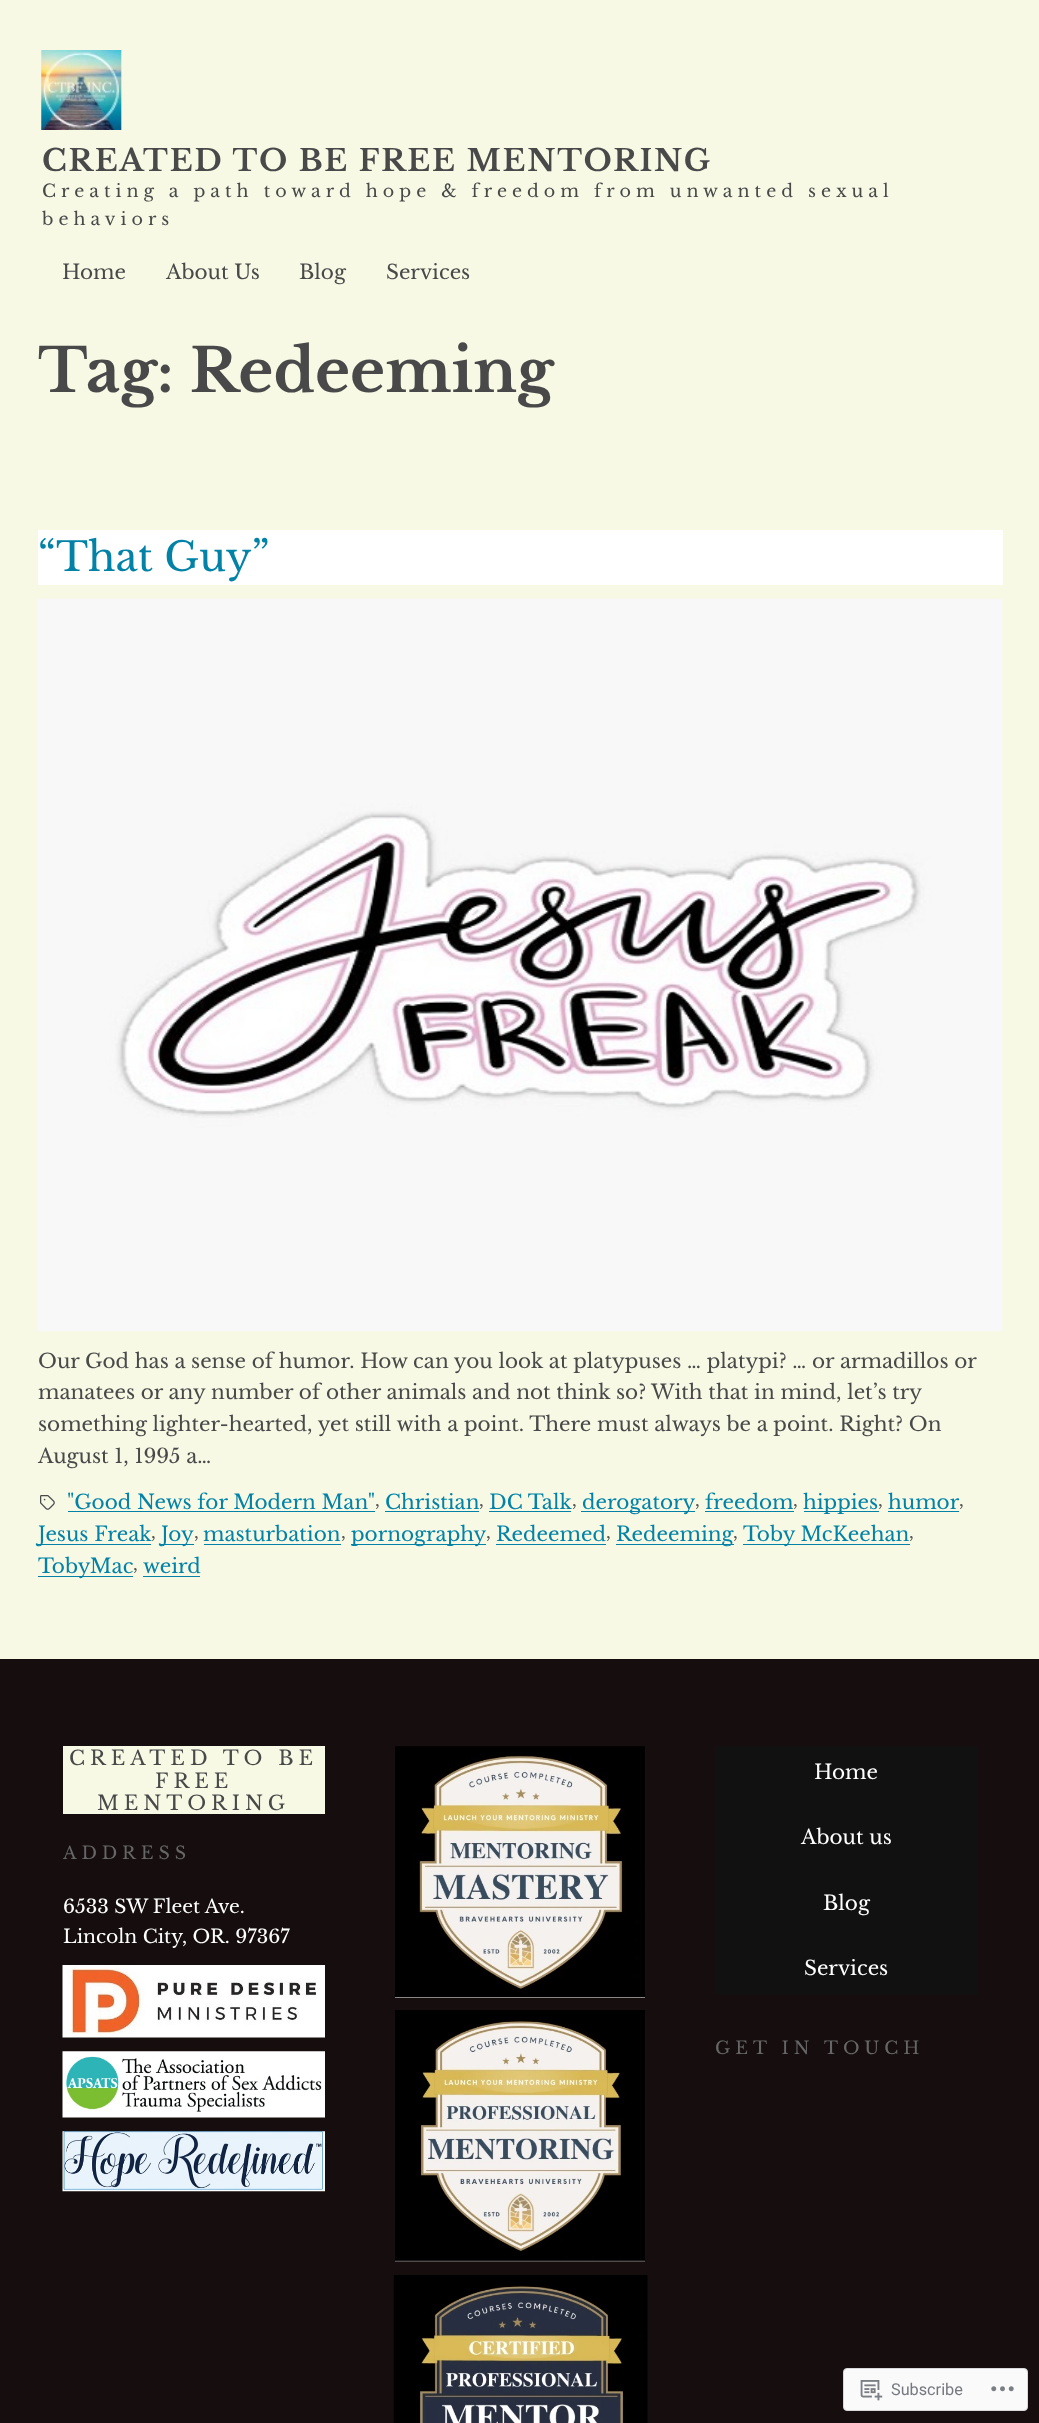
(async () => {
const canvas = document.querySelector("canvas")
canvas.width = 1039
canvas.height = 2423
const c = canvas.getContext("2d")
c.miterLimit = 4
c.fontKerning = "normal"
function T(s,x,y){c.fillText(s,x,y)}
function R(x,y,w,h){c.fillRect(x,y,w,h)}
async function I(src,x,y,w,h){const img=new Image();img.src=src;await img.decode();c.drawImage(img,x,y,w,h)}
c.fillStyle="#f7f9e5"
R(0,0,1039,2423)
await I("1.png",41,50,81,80)
c.letterSpacing="1.75px"
c.font="bold 30px Libre Baskerville"
c.fillStyle="#494949"
T("CREATED TO BE FREE MENTORING",42,171)
c.letterSpacing="5px"
c.font="17.5px Libre Baskerville"
T("Creating a path toward hope & freedom from unwanted sexual",42,197)
T("behaviors",42,225)
c.letterSpacing="0px"
c.font="20px Libre Baskerville"
T("Home",62,279)
T("About Us",166,279)
T("Blog",299,279)
T("Services",386,279)
c.font="bold 60px Libre Baskerville"
T("Tag: Redeeming",38,392)
c.fillStyle="#fff"
R(38,530,965,55)
c.font="40px Libre Baskerville"
c.fillStyle="#0282a7"
T("“That Guy”",38,571)
await I("2.png",37,598,966,734)
c.font="20px Libre Baskerville"
c.fillStyle="#494949"
T("Our God has a sense of humor. How can you look at platypuses … platypi? … or armadillos or",38,1368)
T("manatees or any number of other animals and not think so? With that in mind, let’s try",38,1399)
T("something lighter-hearted, yet still with a point. There must always be a point. Right? On",38,1431)
T("August 1, 1995 a…",38,1463)
await I("3.png",40,1495,15,15)
c.fillStyle="#0282a7"
T("\"Good News for Modern Man\"",67,1509)
R(68,1511,307,1)
c.font="17.5px Libre Baskerville"
c.fillStyle="#494949"
T(",",375,1506)
c.font="20px Libre Baskerville"
c.fillStyle="#0282a7"
T("Christian",385,1509)
R(385,1511,94,1)
c.font="17.5px Libre Baskerville"
c.fillStyle="#494949"
T(",",479,1506)
c.font="20px Libre Baskerville"
c.fillStyle="#0282a7"
T("DC Talk",489,1509)
R(489,1511,82,1)
c.font="17.5px Libre Baskerville"
c.fillStyle="#494949"
T(",",572,1506)
c.fillStyle="#0282a7"
R(581,1511,114,1)
c.font="20px Libre Baskerville"
T("derogatory",582,1509)
c.font="17.5px Libre Baskerville"
c.fillStyle="#494949"
T(",",695,1506)
c.font="20px Libre Baskerville"
c.fillStyle="#0282a7"
T("freedom",705,1509)
R(705,1511,89,1)
c.font="17.5px Libre Baskerville"
c.fillStyle="#494949"
T(",",793,1506)
c.fillStyle="#0282a7"
R(804,1511,75,1)
c.font="20px Libre Baskerville"
T("hippies",803,1509)
c.font="17.5px Libre Baskerville"
c.fillStyle="#494949"
T(",",878,1506)
c.font="20px Libre Baskerville"
c.fillStyle="#0282a7"
T("humor",888,1509)
R(888,1511,71,1)
c.font="17.5px Libre Baskerville"
c.fillStyle="#494949"
T(",",959,1506)
c.fillStyle="#0282a7"
R(38,1544,113,1)
c.font="20px Libre Baskerville"
T("Jesus Freak",38,1541)
c.font="17.5px Libre Baskerville"
c.fillStyle="#494949"
T(",",151,1538)
c.fillStyle="#0282a7"
R(161,1544,33,1)
c.font="20px Libre Baskerville"
T("Joy",161,1541)
c.font="17.5px Libre Baskerville"
c.fillStyle="#494949"
T(",",194,1538)
c.font="20px Libre Baskerville"
c.fillStyle="#0282a7"
T("masturbation",203,1541)
R(204,1544,137,1)
c.font="17.5px Libre Baskerville"
c.fillStyle="#494949"
T(",",341,1538)
c.fillStyle="#0282a7"
R(351,1544,135,1)
c.font="20px Libre Baskerville"
T("pornography",351,1541)
c.font="17.5px Libre Baskerville"
c.fillStyle="#494949"
T(",",486,1538)
c.font="20px Libre Baskerville"
c.fillStyle="#0282a7"
T("Redeemed",496,1541)
R(496,1544,110,1)
c.font="17.5px Libre Baskerville"
c.fillStyle="#494949"
T(",",606,1538)
c.fillStyle="#0282a7"
R(616,1544,118,1)
c.font="20px Libre Baskerville"
T("Redeeming",616,1541)
c.font="17.5px Libre Baskerville"
c.fillStyle="#494949"
T(",",733,1538)
c.fillStyle="#0282a7"
R(743,1544,167,1)
c.font="20px Libre Baskerville"
T("Toby McKeehan",743,1541)
c.font="17.5px Libre Baskerville"
c.fillStyle="#494949"
T(",",909,1538)
c.fillStyle="#0282a7"
R(38,1576,95,1)
c.font="20px Libre Baskerville"
T("TobyMac",38,1573)
c.font="17.5px Libre Baskerville"
c.fillStyle="#494949"
T(",",133,1570)
c.font="20px Libre Baskerville"
c.fillStyle="#0282a7"
T("weird",143,1573)
R(143,1576,57,1)
c.fillStyle="#160e0e"
R(0,1659,1039,764)
c.fillStyle="#f7f9e5"
R(63,1746,262,68)
c.letterSpacing="5px"
c.fillStyle="#494949"
T("CREATED TO BE",69,1765)
T("FREE",155,1788)
T("MENTORING",97,1810)
c.font="17.5px Libre Baskerville"
c.fillStyle="#666"
T("ADDRESS",63,1859)
c.letterSpacing="0px"
c.font="18.75px Libre Baskerville"
c.fillStyle="#fff"
T("6533 SW Fleet Ave.",63,1913)
T("Lincoln City, OR. 97367",63,1943)
await I("4.png",62,1965,263,73)
await I("5.png",62,2051,263,67)
await I("6.png",62,2131,263,61)
await I("7.png",395,1746,250,252)
await I("8.png",395,2010,250,252)
await I("9.png",393,2275,255,148)
c.fillStyle="#111"
R(715,1746,263,249)
c.font="20px Libre Baskerville"
c.fillStyle="#fff"
T("Home",814,1779)
T("About us",801,1844)
T("Blog",823,1910)
T("Services",804,1975)
c.letterSpacing="5px"
c.font="17.5px Libre Baskerville"
c.fillStyle="#666"
T("GET IN TOUCH",715,2054)
c.fillStyle="#fafafa"
c.beginPath()
c.roundRect(843.5,2368.5,184,42,3.5)
c.fill()
c.strokeStyle="#d8d8da"
c.stroke()
await I("10.png",860,2380,23,21)
c.letterSpacing="0px"
c.font="16.25px Roboto"
c.fillStyle="#767a80"
T("Subscribe",891,2395)
await I("11.png",991,2386,23,6)
})()
